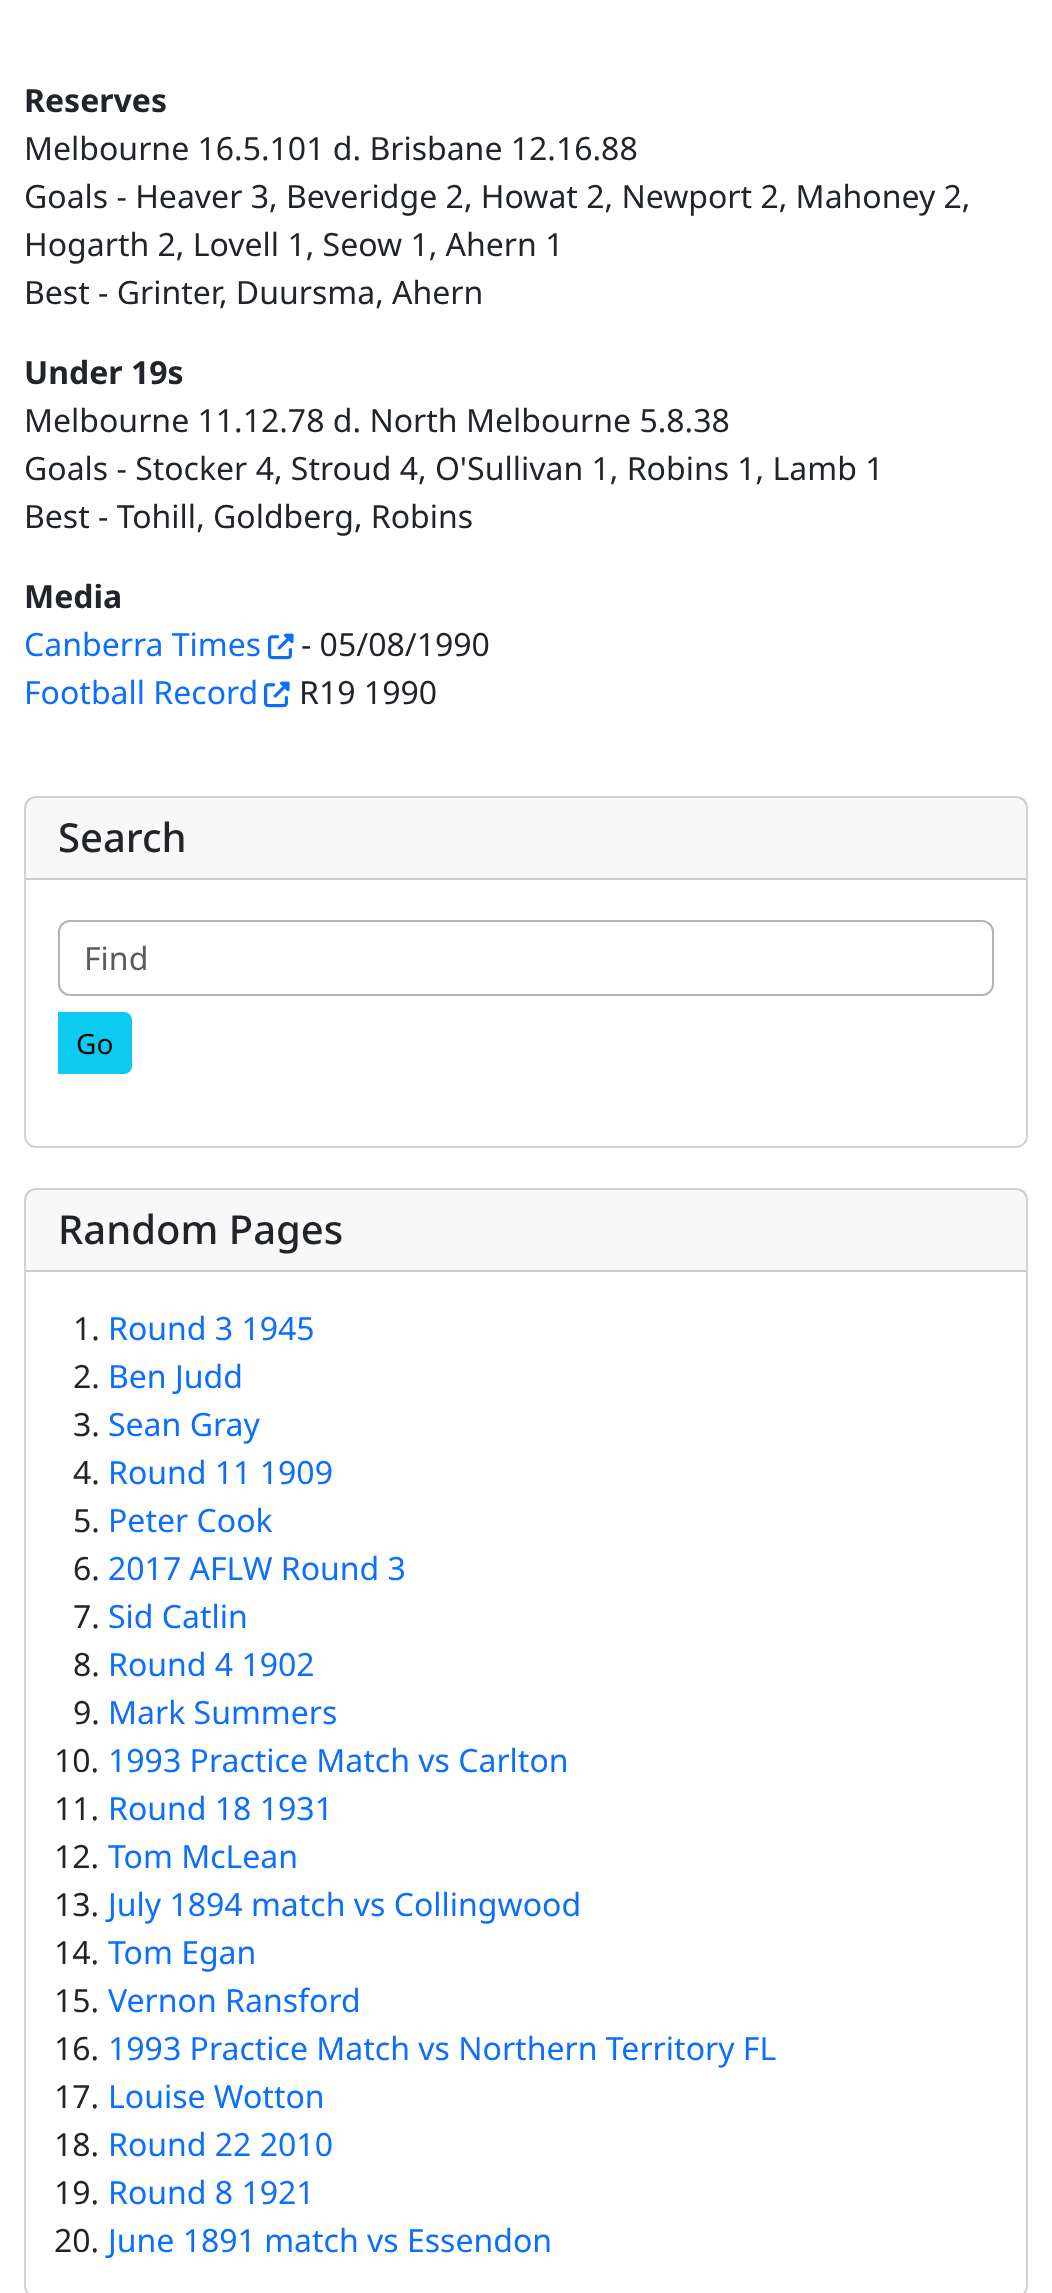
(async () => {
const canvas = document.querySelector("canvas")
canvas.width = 1052
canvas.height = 2293
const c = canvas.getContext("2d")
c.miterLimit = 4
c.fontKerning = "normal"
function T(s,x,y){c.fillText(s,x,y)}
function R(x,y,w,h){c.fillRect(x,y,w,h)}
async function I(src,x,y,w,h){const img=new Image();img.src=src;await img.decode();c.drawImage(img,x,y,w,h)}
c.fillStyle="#fff"
R(0,0,1052,2293)
c.font="bold 32px Noto Sans"
c.fillStyle="#212529"
T("Reserves",24,112)
c.font="32px Noto Sans"
T("Melbourne 16.5.101 d. Brisbane 12.16.88",24,160)
T("Goals - Heaver 3, Beveridge 2, Howat 2, Newport 2, Mahoney 2,",24,208)
T("Hogarth 2, Lovell 1, Seow 1, Ahern 1",24,256)
T("Best - Grinter, Duursma, Ahern",24,304)
c.font="bold 32px Noto Sans"
T("Under 19s",24,384)
c.font="32px Noto Sans"
T("Melbourne 11.12.78 d. North Melbourne 5.8.38",24,432)
T("Goals - Stocker 4, Stroud 4, O'Sullivan 1, Robins 1, Lamb 1",24,480)
T("Best - Tohill, Goldberg, Robins",24,528)
c.font="bold 32px Noto Sans"
T("Media",24,608)
c.font="32px Noto Sans"
c.fillStyle="#0d6efd"
T("Canberra Times",24,656)
await I("1.png",268,633,26,27)
c.fillStyle="#212529"
T("- 05/08/1990",301,656)
c.fillStyle="#0d6efd"
T("Football Record",24,704)
await I("1.png",264,681,26,27)
c.fillStyle="#212529"
T("R19 1990",299,704)
c.beginPath()
c.roundRect(25,797,1002,350,11)
c.strokeStyle="#d2d2d2"
c.lineWidth=2
c.stroke()
c.fillStyle="#21252908"
R(26,798,1000,80)
c.fillStyle="#cdcdcd"
R(26,878,1000,2)
c.font="500 40px Noto Sans"
c.fillStyle="#212529"
T("Search",58,852)
c.beginPath()
c.roundRect(59,921,934,74,11)
c.strokeStyle="#adb5bd"
c.stroke()
c.font="32px Noto Sans"
c.fillStyle="#595c5f"
T("Find",84,970)
c.fillStyle="#0dcaf0"
c.beginPath()
c.roundRect(59,1013,72,60,[0,7,7,0])
c.fill()
c.strokeStyle="#0dcaf0"
c.stroke()
c.font="28px Noto Sans"
c.fillStyle="#000"
T("Go",76,1054)
c.beginPath()
c.roundRect(25,1189,1002,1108,11)
c.strokeStyle="#d2d2d2"
c.stroke()
c.fillStyle="#21252908"
R(26,1190,1000,80)
c.fillStyle="#cdcdcd"
R(26,1270,1000,2)
c.font="500 40px Noto Sans"
c.fillStyle="#212529"
T("Random Pages",58,1244)
c.font="32px Noto Sans"
T("1.",73,1340)
c.fillStyle="#0d6efd"
T("Round 3 1945",108,1340)
c.fillStyle="#212529"
T("2.",73,1388)
c.fillStyle="#0d6efd"
T("Ben Judd",108,1388)
c.fillStyle="#212529"
T("3.",73,1436)
c.fillStyle="#0d6efd"
T("Sean Gray",108,1436)
c.fillStyle="#212529"
T("4.",73,1484)
c.fillStyle="#0d6efd"
T("Round 11 1909",108,1484)
c.fillStyle="#212529"
T("5.",73,1532)
c.fillStyle="#0d6efd"
T("Peter Cook",108,1532)
c.fillStyle="#212529"
T("6.",73,1580)
c.fillStyle="#0d6efd"
T("2017 AFLW Round 3",108,1580)
c.fillStyle="#212529"
T("7.",73,1628)
c.fillStyle="#0d6efd"
T("Sid Catlin",108,1628)
c.fillStyle="#212529"
T("8.",73,1676)
c.fillStyle="#0d6efd"
T("Round 4 1902",108,1676)
c.fillStyle="#212529"
T("9.",73,1724)
c.fillStyle="#0d6efd"
T("Mark Summers",108,1724)
c.fillStyle="#212529"
T("10.",54,1772)
c.fillStyle="#0d6efd"
T("1993 Practice Match vs Carlton",108,1772)
c.fillStyle="#212529"
T("11.",54,1820)
c.fillStyle="#0d6efd"
T("Round 18 1931",108,1820)
c.fillStyle="#212529"
T("12.",54,1868)
c.fillStyle="#0d6efd"
T("Tom McLean",108,1868)
c.fillStyle="#212529"
T("13.",54,1916)
c.fillStyle="#0d6efd"
T("July 1894 match vs Collingwood",108,1916)
c.fillStyle="#212529"
T("14.",54,1964)
c.fillStyle="#0d6efd"
T("Tom Egan",108,1964)
c.fillStyle="#212529"
T("15.",54,2012)
c.fillStyle="#0d6efd"
T("Vernon Ransford",108,2012)
c.fillStyle="#212529"
T("16.",54,2060)
c.fillStyle="#0d6efd"
T("1993 Practice Match vs Northern Territory FL",108,2060)
c.fillStyle="#212529"
T("17.",54,2108)
c.fillStyle="#0d6efd"
T("Louise Wotton",108,2108)
c.fillStyle="#212529"
T("18.",54,2156)
c.fillStyle="#0d6efd"
T("Round 22 2010",108,2156)
c.fillStyle="#212529"
T("19.",54,2204)
c.fillStyle="#0d6efd"
T("Round 8 1921",108,2204)
c.fillStyle="#212529"
T("20.",54,2252)
c.fillStyle="#0d6efd"
T("June 1891 match vs Essendon",108,2252)
})()
